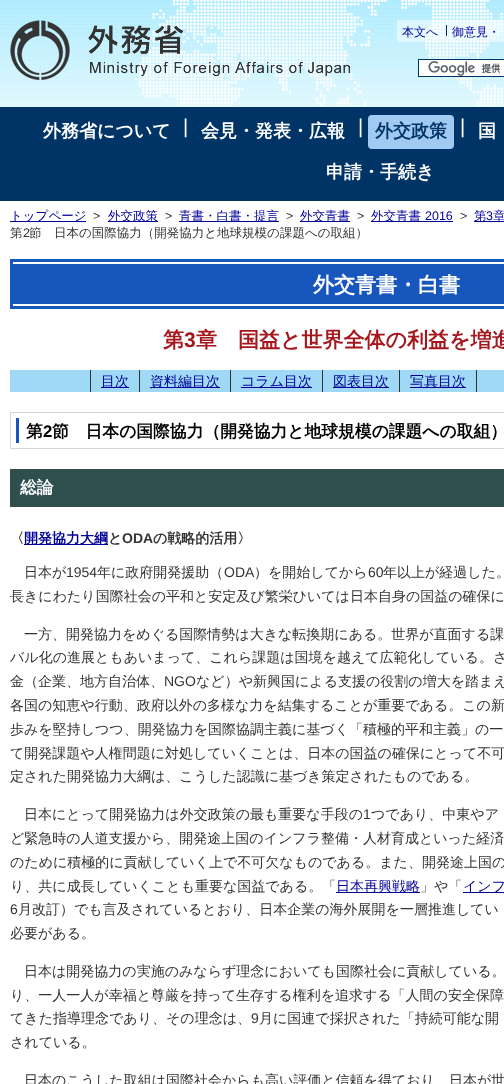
(async () => {
const canvas = document.querySelector("canvas")
canvas.width = 504
canvas.height = 1084
const c = canvas.getContext("2d")
c.miterLimit = 4
c.fontKerning = "normal"
function T(s,x,y){c.fillText(s,x,y)}
function R(x,y,w,h){c.fillRect(x,y,w,h)}
function Q(x,y,w,h,r){c.beginPath();c.roundRect(x,y,w,h,r);c.fill()}
async function I(src,x,y,w,h){const img=new Image();img.src=src;await img.decode();c.drawImage(img,x,y,w,h)}
c.fillStyle="#fff"
R(0,0,504,1084)
await I("1.png",0,0,504,107)
await I("2.png",135,0,369,106)
await I("3.png",10,20,340,60)
c.fillStyle="#ffffff80"
R(397,20,107,22)
c.font="500 12px WenQuanYi Zen Hei"
c.fillStyle="#009"
T("本文へ",402,36)
T("御意見・",452,36)
c.fillStyle="#036"
R(446,25,1,11)
c.fillStyle="#fff"
R(419,60,85,16)
await I("4.png",428,61,73,15)
c.strokeStyle="#036"
c.strokeRect(418.5,59.5,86,17)
c.fillStyle="#036"
R(0,107,504,94)
c.font="bold 18px WenQuanYi Zen Hei"
c.fillStyle="#fff"
T("外務省について",43,137)
c.font="20px Liberation Sans"
T("|",183,133)
c.font="bold 18px WenQuanYi Zen Hei"
T("会見・発表・広報",201,137)
c.font="20px Liberation Sans"
T("|",358,133)
c.fillStyle="#a1caf2"
Q(368,115,86,34,4)
c.font="bold 18px WenQuanYi Zen Hei"
c.fillStyle="#036"
T("外交政策",375,137)
c.font="20px Liberation Sans"
c.fillStyle="#fff"
T("|",460,133)
c.font="bold 18px WenQuanYi Zen Hei"
T("国",478,137)
T("申請・手続き",326,178)
c.fillStyle="#009"
R(10,221,76,1)
c.font="500 12.5px WenQuanYi Zen Hei"
T("トップページ",10,220)
c.font="12.5px Liberation Sans"
c.fillStyle="#333"
T(">",93,220)
c.fillStyle="#009"
R(108,221,50,1)
c.font="500 12.5px WenQuanYi Zen Hei"
T("外交政策",108,220)
c.font="12.5px Liberation Sans"
c.fillStyle="#333"
T(">",165,220)
c.fillStyle="#009"
R(179,221,100,1)
c.font="500 12.5px WenQuanYi Zen Hei"
T("青書・白書・提言",179,220)
c.font="12.5px Liberation Sans"
c.fillStyle="#333"
T(">",286,220)
c.fillStyle="#009"
R(300,221,50,1)
c.font="500 12.5px WenQuanYi Zen Hei"
T("外交青書",300,220)
c.font="12.5px Liberation Sans"
c.fillStyle="#333"
T(">",357,220)
c.fillStyle="#009"
R(371,221,82,1)
c.font="500 12.5px WenQuanYi Zen Hei"
T("外交青書",371,220)
c.font="12.5px Liberation Sans"
T("2016",425,220)
c.fillStyle="#333"
T(">",460,220)
c.fillStyle="#009"
R(474,221,30,1)
c.font="500 12.5px WenQuanYi Zen Hei"
T("第",474,220)
c.font="12.5px Liberation Sans"
T("3",486,220)
c.font="500 12.5px WenQuanYi Zen Hei"
T("章",493,220)
c.fillStyle="#333"
T("第",10,237)
c.font="12.5px Liberation Sans"
T("2",23,237)
c.font="500 12.5px WenQuanYi Zen Hei"
T("節　日本の国際協力（開発協力と地球規模の課題への取組）",29,237)
c.fillStyle="#1756bd"
R(10,259,494,50)
c.fillStyle="#fff"
R(13,262,491,2)
R(13,304,491,2)
c.font="bold 21px WenQuanYi Zen Hei"
T("外交青書・白書",313,292)
c.fillStyle="#a5171c"
T("第",163,347)
c.font="bold 21px Liberation Sans"
T("3",184,347)
c.font="bold 21px WenQuanYi Zen Hei"
T("章　国益と世界全体の利益を増進",196,347)
c.fillStyle="#9fd9f6"
R(10,370,494,22)
c.fillStyle="#333"
R(90,370,1,22)
R(139,370,1,22)
c.fillStyle="#009"
R(101,387,28,1)
c.font="500 14px WenQuanYi Zen Hei"
T("目次",101,386)
c.fillStyle="#333"
R(230,370,1,22)
c.fillStyle="#009"
R(150,387,70,1)
T("資料編目次",150,386)
c.fillStyle="#333"
R(322,370,1,22)
c.fillStyle="#009"
R(241,387,71,1)
T("コラム目次",241,386)
c.fillStyle="#333"
R(399,370,1,22)
c.fillStyle="#009"
R(333,387,56,1)
T("図表目次",333,386)
c.fillStyle="#333"
R(476,370,1,22)
c.fillStyle="#009"
R(410,387,56,1)
T("写真目次",410,386)
c.strokeStyle="#d5d5d5"
c.strokeRect(10.5,412.5,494,36)
c.fillStyle="#1756bd"
R(16,418,3,25)
c.font="bold 16.8px WenQuanYi Zen Hei"
c.fillStyle="#000"
T("第",26,437)
c.font="bold 16.8px Liberation Sans"
T("2",43,437)
c.font="bold 16.8px WenQuanYi Zen Hei"
T("節　日本の国際協力（開発協力と地球規模の課題への取組）",52,437)
c.fillStyle="#2f4f4f"
R(10,469,494,38)
c.fillStyle="#fff"
T("総論",20,493)
c.font="bold 14px WenQuanYi Zen Hei"
c.fillStyle="#333"
T("〈",10,543)
c.fillStyle="#009"
R(24,544,84,1)
T("開発協力大綱",24,543)
c.fillStyle="#333"
T("と",108,543)
c.font="bold 14px Liberation Sans"
T("ODA",122,543)
c.font="bold 14px WenQuanYi Zen Hei"
T("の戦略的活用〉",153,543)
c.font="500 14px WenQuanYi Zen Hei"
T("日本が",24,577)
c.font="14px Liberation Sans"
T("1954",66,577)
c.font="500 14px WenQuanYi Zen Hei"
T("年に政府開発援助（",97,577)
c.font="14px Liberation Sans"
T("ODA",224,577)
c.font="500 14px WenQuanYi Zen Hei"
T("）を開始してから",254,577)
c.font="14px Liberation Sans"
T("60",368,577)
c.font="500 14px WenQuanYi Zen Hei"
T("年以上が経過した。",383,577)
T("長きにわたり国際社会の平和と安定及び繁栄ひいては日本自身の国益の確保に",10,601)
T("一方、開発協力をめぐる国際情勢は大きな転換期にある。世界が直面する課",24,639)
T("バル化の進展ともあいまって、これら課題は国境を越えて広範化している。さ",10,662)
T("金（企業、地方自治体、",10,686)
c.font="14px Liberation Sans"
T("NGO",164,686)
c.font="500 14px WenQuanYi Zen Hei"
T("など）や新興国による支援の役割の増大を踏まえ",196,686)
T("各国の知恵や行動、政府以外の多様な力を結集することが重要である。この新",10,710)
T("歩みを堅持しつつ、開発協力を国際協調主義に基づく「積極的平和主義」の一",10,734)
T("て開発課題や人権問題に対処していくことは、日本の国益の確保にとって不可",10,758)
T("定された開発協力大綱は、こうした認識に基づき策定されたものである。",10,781)
T("日本にとって開発協力は外交政策の最も重要な手段の",24,819)
c.font="14px Liberation Sans"
T("1",363,819)
c.font="500 14px WenQuanYi Zen Hei"
T("つであり、中東やア",371,819)
T("ど緊急時の人道支援から、開発途上国のインフラ整備・人材育成といった経済",10,843)
T("のために積極的に貢献していく上で不可欠なものである。また、開発途上国の",10,867)
T("り、共に成長していくことも重要な国益である。「",10,891)
c.fillStyle="#009"
R(336,892,84,1)
T("日本再興戦略",336,891)
c.fillStyle="#333"
T("」や「",420,891)
c.fillStyle="#009"
R(463,892,41,1)
T("インフ",463,891)
c.font="14px Liberation Sans"
c.fillStyle="#333"
T("6",10,914)
c.font="500 14px WenQuanYi Zen Hei"
T("月改訂）でも言及されているとおり、日本企業の海外展開を一層推進してい",18,914)
T("必要がある。",10,938)
T("日本は開発協力の実施のみならず理念においても国際社会に貢献している。",24,976)
T("り、一人一人が幸福と尊厳を持って生存する権利を追求する「人間の安全保障",10,1000)
T("てきた指導理念であり、その理念は、",10,1023)
c.font="14px Liberation Sans"
T("9",251,1023)
c.font="500 14px WenQuanYi Zen Hei"
T("月に国連で採択された「持続可能な開",259,1023)
T("されている。",10,1047)
T("日本のこうした取組は国際社会からも高い評価と信頼を得ており、日本が世",24,1085)
})()
